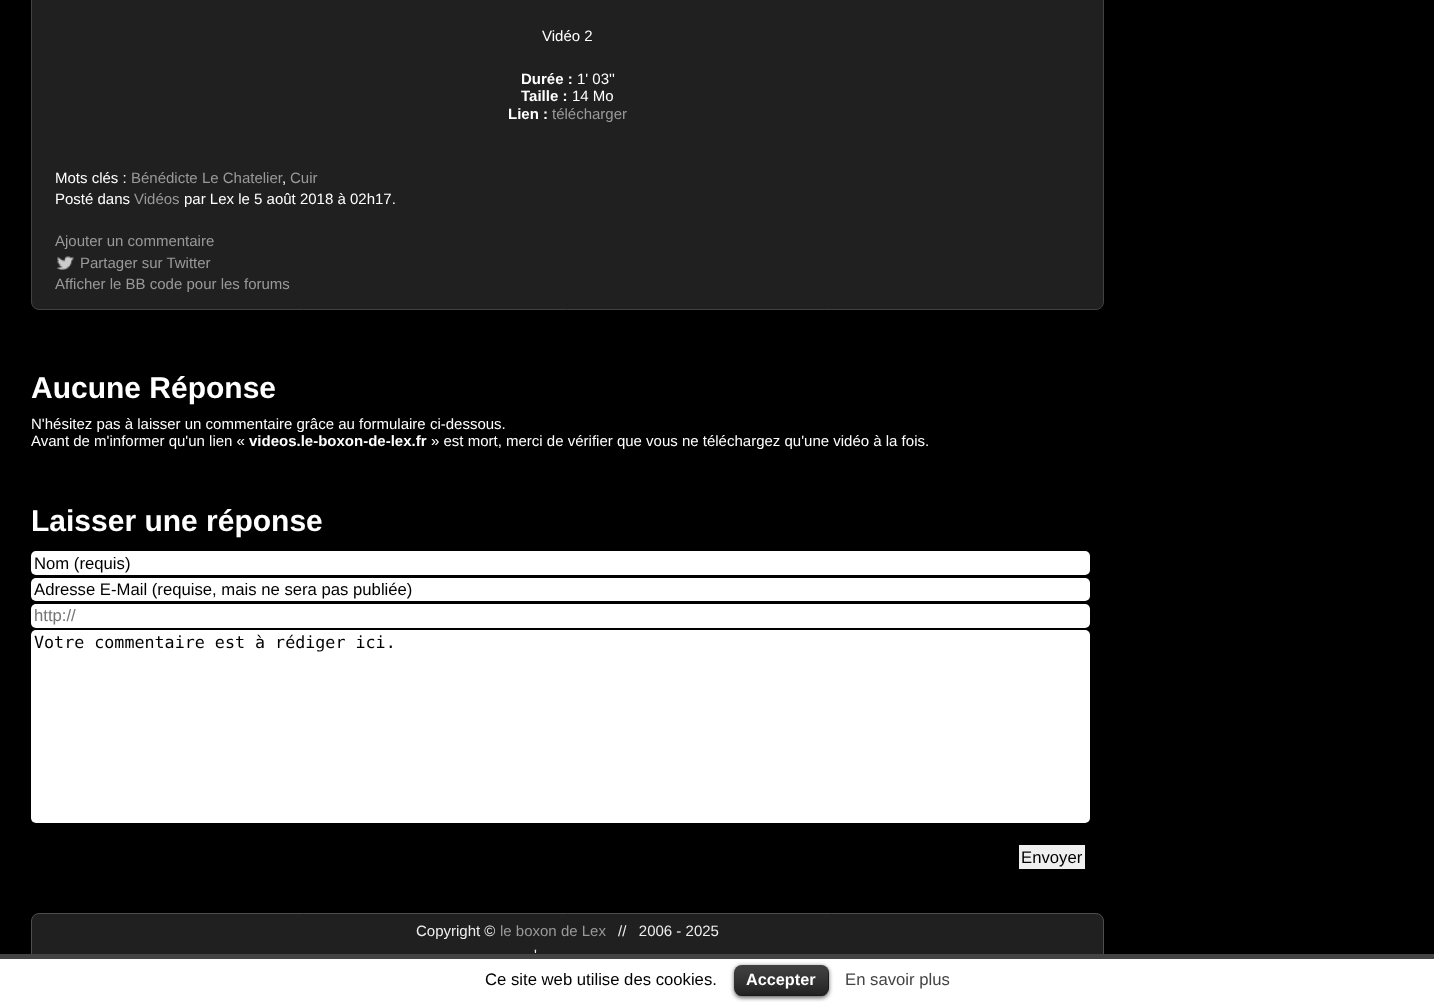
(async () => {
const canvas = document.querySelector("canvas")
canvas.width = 1434
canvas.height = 1002
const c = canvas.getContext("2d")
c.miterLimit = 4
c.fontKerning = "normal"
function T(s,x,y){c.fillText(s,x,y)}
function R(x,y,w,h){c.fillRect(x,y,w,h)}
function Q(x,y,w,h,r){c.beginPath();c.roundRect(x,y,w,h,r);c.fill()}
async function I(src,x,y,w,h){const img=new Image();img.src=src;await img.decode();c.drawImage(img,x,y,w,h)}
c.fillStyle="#000"
R(0,0,1434,1002)
c.fillStyle="#202020"
c.beginPath()
c.roundRect(31.5,-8.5,1072,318,7.5)
c.fill()
c.strokeStyle="#424242"
c.stroke()
c.font="15px Liberation Sans"
c.fillStyle="#fff"
T("Vidéo 2",542,41)
c.font="bold 15px Liberation Sans"
T("Durée :",521,84)
c.font="15px Liberation Sans"
T("1' 03''",577,84)
c.font="bold 15px Liberation Sans"
T("Taille :",521,101)
c.font="15px Liberation Sans"
T("14 Mo",572,101)
c.font="bold 15px Liberation Sans"
T("Lien :",508,119)
c.font="15px Liberation Sans"
c.fillStyle="#999"
T("télécharger",552,119)
c.fillStyle="#fff"
T("Mots clés :",55,183)
c.fillStyle="#999"
T("Bénédicte Le Chatelier",131,183)
c.fillStyle="#fff"
T(",",282,183)
c.fillStyle="#999"
T("Cuir",290,183)
c.fillStyle="#fff"
T("Posté dans",55,204)
c.fillStyle="#999"
T("Vidéos",134,204)
c.fillStyle="#fff"
T("par Lex le 5 août 2018 à 02h17.",184,204)
c.fillStyle="#999"
T("Ajouter un commentaire",55,246)
await I("1.png",56,256,18,14)
T("Partager sur Twitter",80,268)
T("Afficher le BB code pour les forums",55,289)
c.font="bold 30px Liberation Sans"
c.fillStyle="#fff"
T("Aucune Réponse",31,398)
c.font="15px Liberation Sans"
T("N'hésitez pas à laisser un commentaire grâce au formulaire ci-dessous.",31,429)
T("Avant de m'informer qu'un lien «",31,446)
c.font="bold 15px Liberation Sans"
T("videos.le-boxon-de-lex.fr",249,446)
c.font="15px Liberation Sans"
T("» est mort, merci de vérifier que vous ne téléchargez qu'une vidéo à la fois.",431,446)
c.font="bold 30px Liberation Sans"
T("Laisser une réponse",31,531)
Q(31,551,1059,24,5)
c.font="16.7px Liberation Sans"
c.fillStyle="#000"
T("Nom (requis)",34,569)
c.fillStyle="#fff"
Q(31,578,1059,23,5)
c.fillStyle="#000"
T("Adresse E-Mail (requise, mais ne sera pas publiée)",34,595)
c.fillStyle="#fff"
Q(31,604,1059,24,5)
c.fillStyle="#757575"
T("http://",34,621)
c.fillStyle="#fff"
Q(31,630,1059,193,5)
c.font="16.7px DejaVu Sans Mono"
c.fillStyle="#000"
T("Votre commentaire est à rédiger ici.",34,648)
c.fillStyle="#efefef"
R(1019,845,66,24)
c.font="16.7px Liberation Sans"
c.fillStyle="#000"
T("Envoyer",1021,863)
c.fillStyle="#202020"
c.beginPath()
c.roundRect(31.5,913.5,1072,64,7.5)
c.fill()
c.strokeStyle="#4d4d4d"
c.stroke()
c.font="15px Liberation Sans"
c.fillStyle="#eee"
T("Copyright ©",416,936)
c.fillStyle="#999"
T("le boxon de Lex",500,936)
c.fillStyle="#eee"
T("//   2006 - 2025",618,936)
T("'",534,960)
c.fillStyle="#fff"
R(0,959,1434,43)
c.fillStyle="#444"
R(0,954,1434,5)
c.font="16.7px Liberation Sans"
c.fillStyle="#000"
T("Ce site web utilise des cookies.",485,985)
c.fillStyle="#00000099"
c.filter="blur(2px)"
c.beginPath()
c.roundRect(734,966,95,32,8)
c.fill()
c.filter="none"
c.fillStyle="#000"
Q(734,965,95,31,8)
await I("2.png",734,965,95,31)
c.fillStyle="#00000040"
R(738,995,87,1)
c.font="bold 16.25px Liberation Sans"
c.fillStyle="#fff"
T("Accepter",746,985)
c.font="16.7px Liberation Sans"
c.fillStyle="#444"
T("En savoir plus",845,985)
})()
